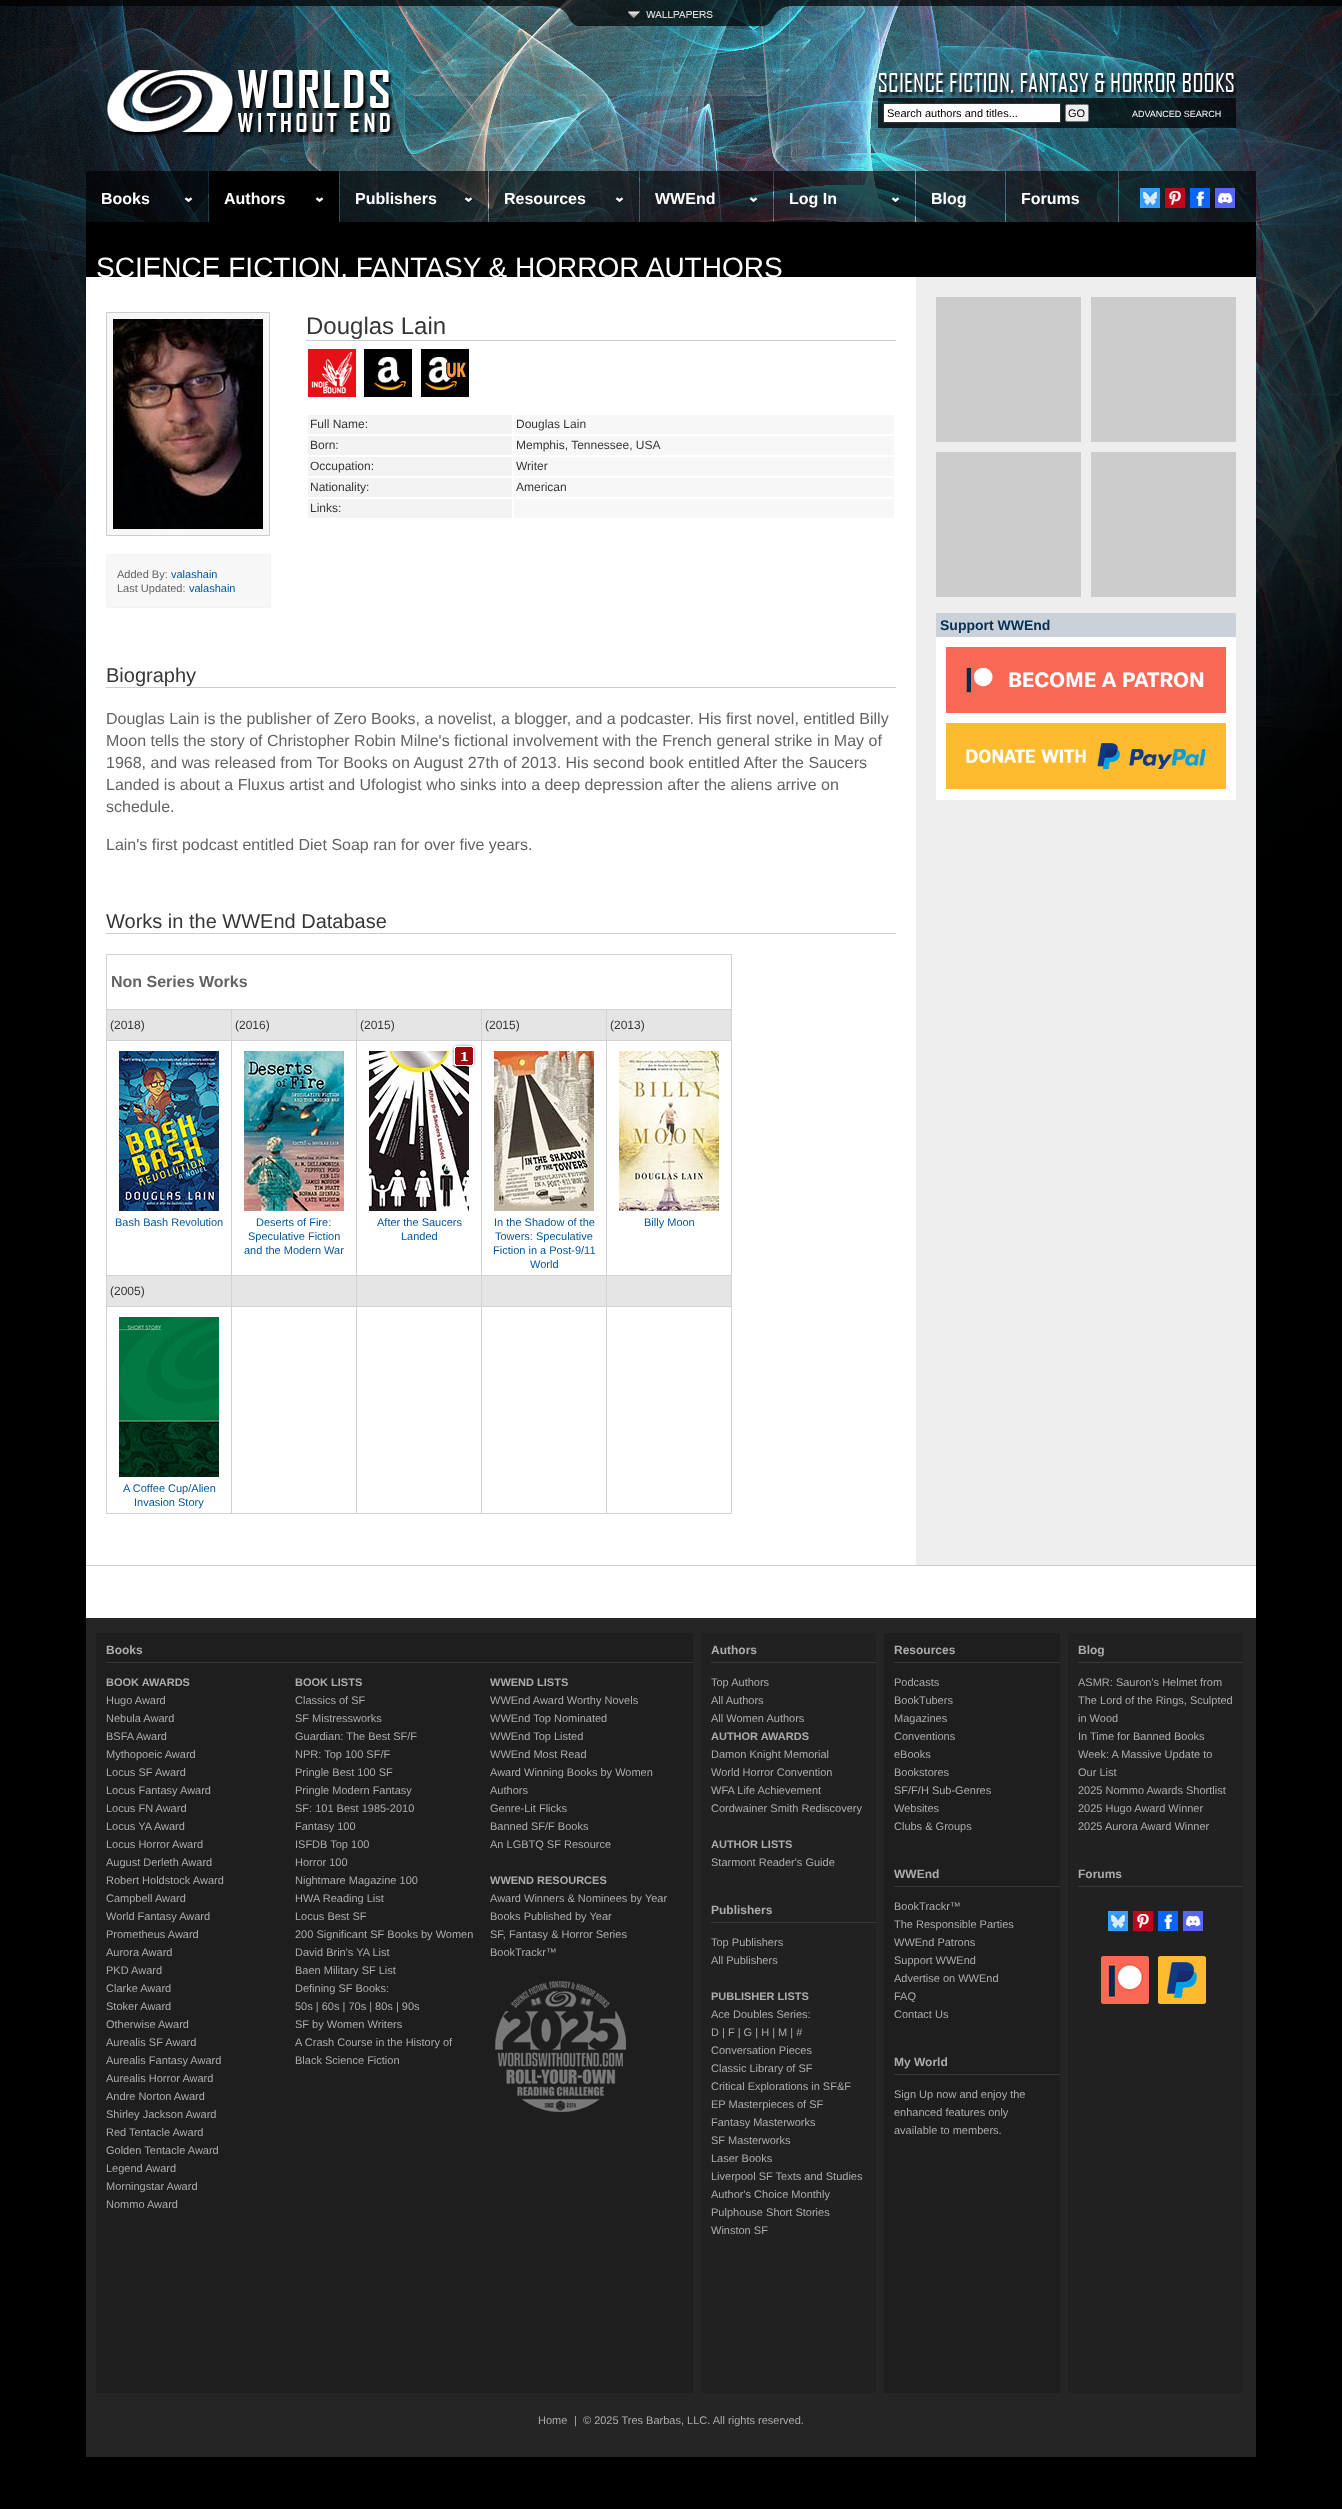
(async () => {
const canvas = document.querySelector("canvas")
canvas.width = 1342
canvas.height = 2509
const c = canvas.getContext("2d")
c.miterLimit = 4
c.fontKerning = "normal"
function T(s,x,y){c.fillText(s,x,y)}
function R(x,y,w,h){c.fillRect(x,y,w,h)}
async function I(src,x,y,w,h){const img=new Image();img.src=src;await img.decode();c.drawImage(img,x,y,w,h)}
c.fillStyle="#000"
R(0,0,1342,2509)
await I("1.png",0,0,1342,970)
await I("2.png",0,0,1342,6)
await I("3.png",86,0,1170,26)
await I("4.png",628,11,85,7)
await I("5.png",107,70,1130,67)
c.fillStyle="#000000b3"
R(878,98,358,30)
c.fillStyle="#fff"
c.beginPath()
c.rect(883.5,103.5,177,19)
c.fill()
c.strokeStyle="#333"
c.stroke()
c.font="11px Liberation Sans"
c.fillStyle="#000"
T("Search authors and titles...",887,117)
c.fillStyle="#efefef"
c.beginPath()
c.roundRect(1065.5,104.5,23,17,1.5)
c.fill()
c.strokeStyle="#767676"
c.stroke()
c.fillStyle="#000"
T("GO",1068,117)
c.font="9px Liberation Sans"
c.fillStyle="#fff"
T("ADVANCED SEARCH",1132,117)
c.fillStyle="#000000a6"
R(86,171,122,51)
await I("6.png",184,197,9,6)
c.font="bold 16px Liberation Sans"
c.fillStyle="#fff"
T("Books",101,204)
c.fillStyle="#000"
R(209,171,130,51)
await I("7.png",315,197,9,6)
c.fillStyle="#fff"
T("Authors",224,204)
c.fillStyle="#000000a6"
R(340,171,148,51)
await I("8.png",464,197,9,6)
c.fillStyle="#fff"
T("Publishers",355,204)
c.fillStyle="#000000a6"
R(489,171,150,51)
await I("9.png",615,197,9,6)
c.fillStyle="#fff"
T("Resources",504,204)
c.fillStyle="#000000a6"
R(640,171,133,51)
await I("10.png",749,197,9,6)
c.fillStyle="#fff"
T("WWEnd",655,204)
c.fillStyle="#000000a6"
R(774,171,141,51)
await I("11.png",891,197,9,6)
c.fillStyle="#fff"
T("Log In",789,204)
c.fillStyle="#000000a6"
R(916,171,89,51)
c.fillStyle="#fff"
T("Blog",931,204)
c.fillStyle="#000000a6"
R(1006,171,112,51)
c.fillStyle="#fff"
T("Forums",1021,204)
c.fillStyle="#000000a6"
R(1119,171,137,51)
await I("12.png",1140,188,95,20)
c.fillStyle="#eee"
R(916,277,340,1288)
c.fillStyle="#000"
R(86,222,1170,55)
c.fillStyle="#fff"
R(86,277,830,1288)
c.font="28px Liberation Sans"
T("SCIENCE FICTION, FANTASY & HORROR AUTHORS",96,277)
c.fillStyle="#ccc"
R(306,340,590,1)
c.font="24px Liberation Sans"
c.fillStyle="#363636"
T("Douglas Lain",306,334)
await I("13.png",308,349,48,48)
await I("14.png",364,349,48,48)
await I("15.png",421,349,48,48)
c.fillStyle="#f3f3f3"
R(308,415,204,19)
c.font="12px Liberation Sans"
c.fillStyle="#363636"
T("Full Name:",310,428)
c.fillStyle="#f7f7f7"
R(514,415,380,19)
c.fillStyle="#363636"
T("Douglas Lain",516,428)
c.fillStyle="#f3f3f3"
R(308,436,204,19)
c.fillStyle="#363636"
T("Born:",310,449)
c.fillStyle="#f7f7f7"
R(514,436,380,19)
c.fillStyle="#363636"
T("Memphis, Tennessee, USA",516,449)
c.fillStyle="#f3f3f3"
R(308,457,204,19)
c.fillStyle="#363636"
T("Occupation:",310,470)
c.fillStyle="#f7f7f7"
R(514,457,380,19)
c.fillStyle="#363636"
T("Writer",516,470)
c.fillStyle="#f3f3f3"
R(308,478,204,19)
c.fillStyle="#363636"
T("Nationality:",310,491)
c.fillStyle="#f7f7f7"
R(514,478,380,19)
c.fillStyle="#363636"
T("American",516,491)
c.fillStyle="#f3f3f3"
R(308,499,204,19)
c.fillStyle="#363636"
T("Links:",310,512)
c.fillStyle="#f7f7f7"
R(514,499,380,19)
c.beginPath()
c.rect(106.5,312.5,163,223)
c.fill()
c.strokeStyle="#ccc"
c.stroke()
await I("16.png",113,319,150,210)
c.beginPath()
c.rect(106.5,554.5,164,53)
c.fill()
c.strokeStyle="#f3f3f3"
c.stroke()
c.font="11px Liberation Sans"
c.fillStyle="#636363"
T("Added By:",117,578)
c.fillStyle="#03569d"
T("valashain",171,578)
c.fillStyle="#636363"
T("Last Updated:",117,592)
c.fillStyle="#03569d"
T("valashain",189,592)
c.fillStyle="#ccc"
R(106,687,790,1)
c.font="20px Liberation Sans"
c.fillStyle="#363636"
T("Biography",106,682)
c.font="16px Liberation Sans"
c.fillStyle="#636363"
T("Douglas Lain is the publisher of Zero Books, a novelist, a blogger, and a podcaster. His first novel, entitled Billy",106,724)
T("Moon tells the story of Christopher Robin Milne's fictional involvement with the French general strike in May of",106,746)
T("1968, and was released from Tor Books on August 27th of 2013. His second book entitled After the Saucers",106,768)
T("Landed is about a Fluxus artist and Ufologist who sinks into a deep depression after the aliens arrive on",106,790)
T("schedule.",106,812)
T("Lain's first podcast entitled Diet Soap ran for over five years.",106,850)
c.fillStyle="#ccc"
R(106,933,790,1)
c.font="20px Liberation Sans"
c.fillStyle="#363636"
T("Works in the WWEnd Database",106,928)
c.fillStyle="#d2d2d2"
R(106,954,626,560)
c.fillStyle="#fff"
R(107,955,624,54)
c.font="bold 16px Liberation Sans"
c.fillStyle="#636363"
T("Non Series Works",111,987)
c.fillStyle="#fff"
R(107,1041,124,234)
c.fillStyle="#e5e5e5"
R(107,1010,124,30)
c.font="12px Liberation Sans"
c.fillStyle="#363636"
T("(2018)",110,1029)
await I("17.png",119,1051,100,160)
c.font="11px Liberation Sans"
c.fillStyle="#03569d"
T("Bash Bash Revolution",115,1226)
c.fillStyle="#fff"
R(232,1041,124,234)
c.fillStyle="#e5e5e5"
R(232,1010,124,30)
c.font="12px Liberation Sans"
c.fillStyle="#363636"
T("(2016)",235,1029)
await I("18.png",244,1051,100,160)
c.font="11px Liberation Sans"
c.fillStyle="#03569d"
T("Deserts of Fire:",256,1226)
T("Speculative Fiction",248,1240)
T("and the Modern War",244,1254)
c.fillStyle="#fff"
R(357,1041,124,234)
c.fillStyle="#e5e5e5"
R(357,1010,124,30)
c.font="12px Liberation Sans"
c.fillStyle="#363636"
T("(2015)",360,1029)
await I("20.png",369,1051,100,160)
await I("19.png",451,1043,26,26)
c.font="11px Liberation Sans"
c.fillStyle="#03569d"
T("After the Saucers",377,1226)
T("Landed",401,1240)
c.fillStyle="#e5e5e5"
R(482,1010,124,30)
c.font="12px Liberation Sans"
c.fillStyle="#363636"
T("(2015)",485,1029)
c.fillStyle="#fff"
R(482,1041,124,234)
await I("21.png",494,1051,100,160)
c.font="11px Liberation Sans"
c.fillStyle="#03569d"
T("In the Shadow of the",494,1226)
T("Towers: Speculative",495,1240)
T("Fiction in a Post-9/11",493,1254)
T("World",530,1268)
c.fillStyle="#fff"
R(607,1041,124,234)
c.fillStyle="#e5e5e5"
R(607,1010,124,30)
c.font="12px Liberation Sans"
c.fillStyle="#363636"
T("(2013)",610,1029)
await I("22.png",619,1051,100,160)
c.font="11px Liberation Sans"
c.fillStyle="#03569d"
T("Billy Moon",644,1226)
c.fillStyle="#e5e5e5"
R(107,1276,124,30)
c.font="12px Liberation Sans"
c.fillStyle="#363636"
T("(2005)",110,1295)
c.fillStyle="#fff"
R(107,1307,124,206)
await I("23.png",119,1317,100,160)
c.font="11px Liberation Sans"
c.fillStyle="#03569d"
T("A Coffee Cup/Alien",123,1492)
T("Invasion Story",134,1506)
c.fillStyle="#fff"
R(232,1307,124,206)
c.fillStyle="#e5e5e5"
R(232,1276,124,30)
c.fillStyle="#fff"
R(357,1307,124,206)
c.fillStyle="#e5e5e5"
R(357,1276,124,30)
c.fillStyle="#fff"
R(482,1307,124,206)
c.fillStyle="#e5e5e5"
R(482,1276,124,30)
c.fillStyle="#fff"
R(607,1307,124,206)
c.fillStyle="#e5e5e5"
R(607,1276,124,30)
c.fillStyle="#ccc"
R(936,297,145,145)
R(1091,297,145,145)
R(936,452,145,145)
R(1091,452,145,145)
c.fillStyle="#cad1d9"
R(936,613,300,24)
c.font="bold 14px Liberation Sans"
c.fillStyle="#062f54"
T("Support WWEnd",940,630)
c.fillStyle="#fff"
R(936,637,300,163)
await I("24.png",946,647,280,66)
await I("25.png",946,723,280,66)
c.fillStyle="#252525"
R(86,1618,1170,839)
c.fillStyle="#fff"
R(86,1566,1170,52)
c.fillStyle="#ccc"
R(86,1565,1170,1)
c.fillStyle="#1e1e1e"
R(96,1633,597,760)
c.fillStyle="#383838"
R(106,1662,587,1)
c.font="bold 12px Liberation Sans"
c.fillStyle="#acacac"
T("Books",106,1654)
c.font="bold 11px Liberation Sans"
T("BOOK AWARDS",106,1686)
c.font="11px Liberation Sans"
T("Hugo Award",106,1704)
T("Nebula Award",106,1722)
T("BSFA Award",106,1740)
T("Mythopoeic Award",106,1758)
T("Locus SF Award",106,1776)
T("Locus Fantasy Award",106,1794)
T("Locus FN Award",106,1812)
T("Locus YA Award",106,1830)
T("Locus Horror Award",106,1848)
T("August Derleth Award",106,1866)
T("Robert Holdstock Award",106,1884)
T("Campbell Award",106,1902)
T("World Fantasy Award",106,1920)
T("Prometheus Award",106,1938)
T("Aurora Award",106,1956)
T("PKD Award",106,1974)
T("Clarke Award",106,1992)
T("Stoker Award",106,2010)
T("Otherwise Award",106,2028)
T("Aurealis SF Award",106,2046)
T("Aurealis Fantasy Award",106,2064)
T("Aurealis Horror Award",106,2082)
T("Andre Norton Award",106,2100)
T("Shirley Jackson Award",106,2118)
T("Red Tentacle Award",106,2136)
T("Golden Tentacle Award",106,2154)
T("Legend Award",106,2172)
T("Morningstar Award",106,2190)
T("Nommo Award",106,2208)
c.font="bold 11px Liberation Sans"
T("BOOK LISTS",295,1686)
c.font="11px Liberation Sans"
T("Classics of SF",295,1704)
T("SF Mistressworks",295,1722)
T("Guardian: The Best SF/F",295,1740)
T("NPR: Top 100 SF/F",295,1758)
T("Pringle Best 100 SF",295,1776)
T("Pringle Modern Fantasy",295,1794)
T("SF: 101 Best 1985-2010",295,1812)
T("Fantasy 100",295,1830)
T("ISFDB Top 100",295,1848)
T("Horror 100",295,1866)
T("Nightmare Magazine 100",295,1884)
T("HWA Reading List",295,1902)
T("Locus Best SF",295,1920)
T("200 Significant SF Books by Women",295,1938)
T("David Brin's YA List",295,1956)
T("Baen Military SF List",295,1974)
T("Defining SF Books:",295,1992)
T("50s | 60s | 70s | 80s | 90s",295,2010)
T("SF by Women Writers",295,2028)
T("A Crash Course in the History of",295,2046)
T("Black Science Fiction",295,2064)
c.font="bold 11px Liberation Sans"
T("WWEND LISTS",490,1686)
c.font="11px Liberation Sans"
T("WWEnd Award Worthy Novels",490,1704)
T("WWEnd Top Nominated",490,1722)
T("WWEnd Top Listed",490,1740)
T("WWEnd Most Read",490,1758)
T("Award Winning Books by Women",490,1776)
T("Authors",490,1794)
T("Genre-Lit Flicks",490,1812)
T("Banned SF/F Books",490,1830)
T("An LGBTQ SF Resource",490,1848)
c.font="bold 11px Liberation Sans"
T("WWEND RESOURCES",490,1884)
c.font="11px Liberation Sans"
T("Award Winners & Nominees by Year",490,1902)
T("Books Published by Year",490,1920)
T("SF, Fantasy & Horror Series",490,1938)
T("BookTrackr™",490,1956)
await I("26.png",495,1981,131,131)
c.fillStyle="#212121"
R(701,1633,175,760)
c.fillStyle="#383838"
R(711,1662,165,1)
c.font="bold 12px Liberation Sans"
c.fillStyle="#acacac"
T("Authors",711,1654)
c.font="11px Liberation Sans"
T("Top Authors",711,1686)
T("All Authors",711,1704)
T("All Women Authors",711,1722)
c.font="bold 11px Liberation Sans"
T("AUTHOR AWARDS",711,1740)
c.font="11px Liberation Sans"
T("Damon Knight Memorial",711,1758)
T("World Horror Convention",711,1776)
T("WFA Life Achievement",711,1794)
T("Cordwainer Smith Rediscovery",711,1812)
c.font="bold 11px Liberation Sans"
T("AUTHOR LISTS",711,1848)
c.font="11px Liberation Sans"
T("Starmont Reader's Guide",711,1866)
c.fillStyle="#383838"
R(711,1922,165,1)
c.font="bold 12px Liberation Sans"
c.fillStyle="#acacac"
T("Publishers",711,1914)
c.font="11px Liberation Sans"
T("Top Publishers",711,1946)
T("All Publishers",711,1964)
c.font="bold 11px Liberation Sans"
T("PUBLISHER LISTS",711,2000)
c.font="11px Liberation Sans"
T("Ace Doubles Series:",711,2018)
T("D | F | G | H | M | #",711,2036)
T("Conversation Pieces",711,2054)
T("Classic Library of SF",711,2072)
T("Critical Explorations in SF&F",711,2090)
T("EP Masterpieces of SF",711,2108)
T("Fantasy Masterworks",711,2126)
T("SF Masterworks",711,2144)
T("Laser Books",711,2162)
T("Liverpool SF Texts and Studies",711,2180)
T("Author's Choice Monthly",711,2198)
T("Pulphouse Short Stories",711,2216)
T("Winston SF",711,2234)
c.fillStyle="#1e1e1e"
R(884,1633,176,760)
c.fillStyle="#383838"
R(894,1662,166,1)
c.font="bold 12px Liberation Sans"
c.fillStyle="#acacac"
T("Resources",894,1654)
c.font="11px Liberation Sans"
T("Podcasts",894,1686)
T("BookTubers",894,1704)
T("Magazines",894,1722)
T("Conventions",894,1740)
T("eBooks",894,1758)
T("Bookstores",894,1776)
T("SF/F/H Sub-Genres",894,1794)
T("Websites",894,1812)
T("Clubs & Groups",894,1830)
c.fillStyle="#383838"
R(894,1886,166,1)
c.font="bold 12px Liberation Sans"
c.fillStyle="#acacac"
T("WWEnd",894,1878)
c.font="11px Liberation Sans"
T("BookTrackr™",894,1910)
T("The Responsible Parties",894,1928)
T("WWEnd Patrons",894,1946)
T("Support WWEnd",894,1964)
T("Advertise on WWEnd",894,1982)
T("FAQ",894,2000)
T("Contact Us",894,2018)
c.fillStyle="#383838"
R(894,2074,166,1)
c.font="bold 12px Liberation Sans"
c.fillStyle="#acacac"
T("My World",894,2066)
c.font="11px Liberation Sans"
T("Sign Up now and enjoy the",894,2098)
T("enhanced features only",894,2116)
T("available to members.",894,2134)
c.fillStyle="#212121"
R(1068,1633,175,760)
c.fillStyle="#383838"
R(1078,1662,165,1)
c.font="bold 12px Liberation Sans"
c.fillStyle="#acacac"
T("Blog",1078,1654)
c.font="11px Liberation Sans"
T("ASMR: Sauron’s Helmet from",1078,1686)
T("The Lord of the Rings, Sculpted",1078,1704)
T("in Wood",1078,1722)
T("In Time for Banned Books",1078,1740)
T("Week: A Massive Update to",1078,1758)
T("Our List",1078,1776)
T("2025 Nommo Awards Shortlist",1078,1794)
T("2025 Hugo Award Winner",1078,1812)
T("2025 Aurora Award Winner",1078,1830)
c.fillStyle="#383838"
R(1078,1886,165,1)
c.font="bold 12px Liberation Sans"
c.fillStyle="#acacac"
T("Forums",1078,1878)
await I("27.png",1108,1911,95,20)
await I("28.png",1101,1956,48,48)
await I("29.png",1158,1956,48,48)
c.font="11px Liberation Sans"
T("Home",538,2424)
T("|  © 2025 Tres Barbas, LLC. All rights reserved.",574,2424)
})()
